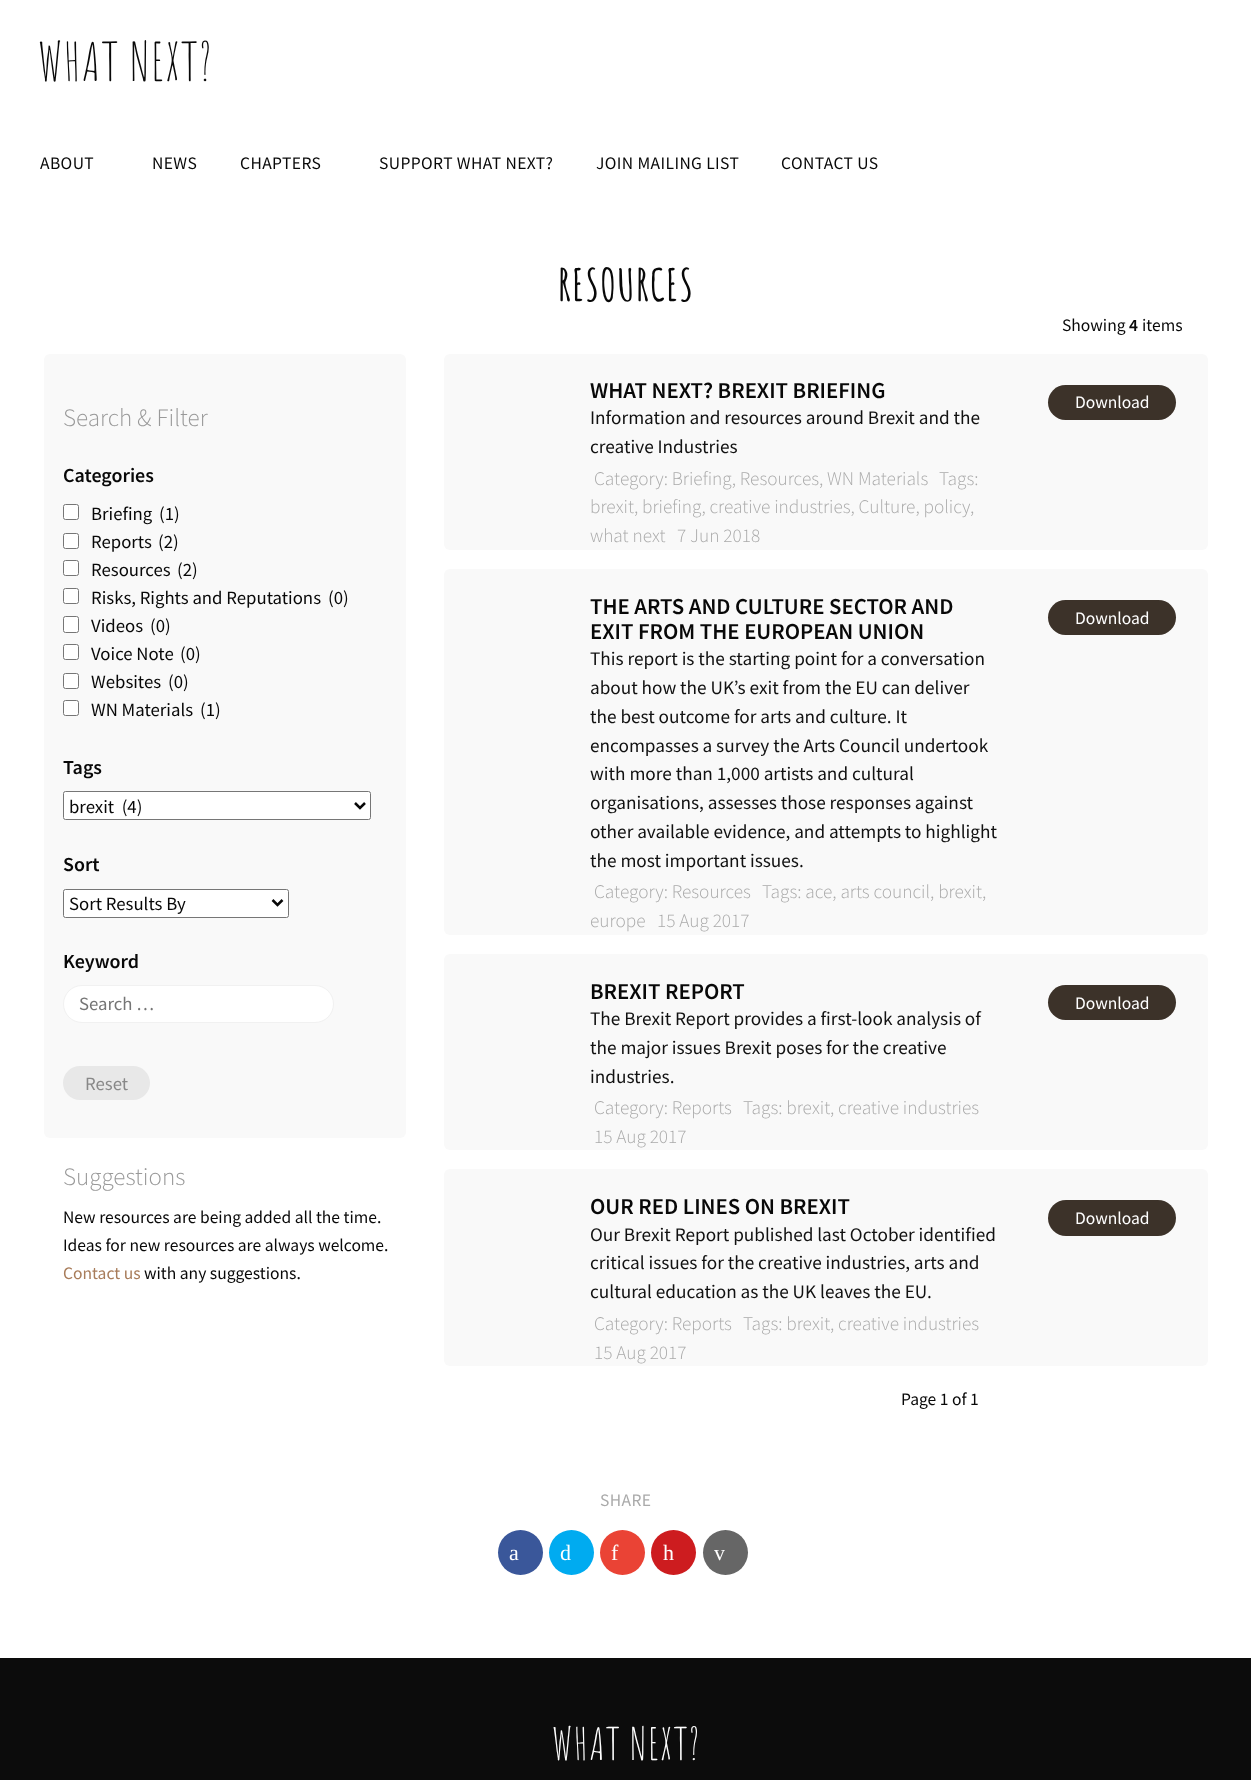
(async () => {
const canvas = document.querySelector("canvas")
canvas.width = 1251
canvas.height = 1780
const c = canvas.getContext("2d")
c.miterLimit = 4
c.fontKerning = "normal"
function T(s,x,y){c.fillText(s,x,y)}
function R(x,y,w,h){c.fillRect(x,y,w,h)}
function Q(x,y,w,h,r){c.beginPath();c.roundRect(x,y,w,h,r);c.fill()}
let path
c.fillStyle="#fff"
R(0,0,1251,1780)
c.letterSpacing="1.25px"
c.font="52.5px Amatic SC"
c.fillStyle="#080808"
T("WHAT NEXT?",38,81)
c.letterSpacing="0.4px"
c.font="17.5px Source Sans Pro"
T("ABOUT",40,169)
T("NEWS",152,169)
T("CHAPTERS",240,169)
T("SUPPORT WHAT NEXT?",379,169)
T("JOIN MAILING LIST",596,169)
T("CONTACT US",781,169)
c.letterSpacing="1.25px"
c.font="bold 44px Amatic SC"
T("RESOURCES",558,301)
c.fillStyle="#f9f9f9"
Q(44,354,362,784,6)
c.letterSpacing="0px"
c.font="300 25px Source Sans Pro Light"
c.fillStyle="#999"
T("Search & Filter",63,426)
c.font="600 20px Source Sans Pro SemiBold"
c.fillStyle="#080808"
T("Categories",63,482)
c.fillStyle="#fff"
c.beginPath()
c.roundRect(63.5,504.5,15,15,2)
c.fill()
c.strokeStyle="#767676"
c.stroke()
c.font="18.75px Source Sans Pro"
c.fillStyle="#080808"
T("Briefing",91,520)
T("(1)",159,520)
c.fillStyle="#fff"
c.beginPath()
c.roundRect(63.5,533.5,15,15,2)
c.fill()
c.stroke()
c.fillStyle="#080808"
T("Reports",91,548)
T("(2)",158,548)
c.fillStyle="#fff"
c.beginPath()
c.roundRect(63.5,560.5,15,15,2)
c.fill()
c.stroke()
c.fillStyle="#080808"
T("Resources",91,576)
T("(2)",177,576)
c.fillStyle="#fff"
c.beginPath()
c.roundRect(63.5,588.5,15,15,2)
c.fill()
c.stroke()
c.fillStyle="#080808"
T("Risks, Rights and Reputations",91,604)
T("(0)",328,604)
c.fillStyle="#fff"
c.beginPath()
c.roundRect(63.5,616.5,15,16,2)
c.fill()
c.stroke()
c.fillStyle="#080808"
T("Videos",91,632)
T("(0)",150,632)
c.fillStyle="#fff"
c.beginPath()
c.roundRect(63.5,644.5,15,15,2)
c.fill()
c.stroke()
c.fillStyle="#080808"
T("Voice Note",91,660)
T("(0)",180,660)
c.fillStyle="#fff"
c.beginPath()
c.roundRect(63.5,673.5,15,15,2)
c.fill()
c.stroke()
c.fillStyle="#080808"
T("Websites",91,688)
T("(0)",168,688)
c.fillStyle="#fff"
c.beginPath()
c.roundRect(63.5,700.5,15,15,2)
c.fill()
c.stroke()
c.fillStyle="#080808"
T("WN Materials",91,716)
T("(1)",200,716)
c.font="600 20px Source Sans Pro SemiBold"
T("Tags",63,774)
c.fillStyle="#fff"
c.beginPath()
c.roundRect(63.5,791.5,307,28,2)
c.fill()
c.stroke()
path = new Path2D("M355 803l5 5l5-5")
c.strokeStyle="#080808"
c.lineWidth=2.5
c.stroke(path)
c.font="18.75px Source Sans Pro"
c.fillStyle="#080808"
T("brexit  (4)",69,813)
c.font="600 20px Source Sans Pro SemiBold"
T("Sort",63,871)
c.fillStyle="#fff"
c.beginPath()
c.roundRect(63.5,889.5,225,28,2)
c.fill()
c.strokeStyle="#767676"
c.lineWidth=1
c.stroke()
path = new Path2D("M272.5 900l5 5l5-5")
c.strokeStyle="#080808"
c.lineWidth=2.5
c.stroke(path)
c.font="18.75px Source Sans Pro"
c.fillStyle="#080808"
T("Sort Results By",69,910)
c.font="600 20px Source Sans Pro SemiBold"
T("Keyword",63,968)
c.fillStyle="#fff"
c.beginPath()
c.roundRect(63.5,985.5,270,37,18.5)
c.fill()
c.strokeStyle="#f1f1f1"
c.lineWidth=1
c.stroke()
c.font="18.75px Source Sans Pro"
c.fillStyle="#757575"
T("Search …",79,1010)
c.fillStyle="#e8e8e8"
Q(63,1066,87,34,17)
c.fillStyle="#888"
T("Reset",85,1090)
c.font="300 25px Source Sans Pro Light"
c.fillStyle="#999"
T("Suggestions",63,1185)
c.font="17.5px Source Sans Pro"
c.fillStyle="#080808"
T("New resources are being added all the time.",63,1223)
T("Ideas for new resources are always welcome.",63,1251)
c.fillStyle="#a87c5a"
T("Contact us",63,1279)
c.fillStyle="#080808"
T("with any suggestions.",144,1279)
T("Showing",1062,331)
c.font="600 17.5px Source Sans Pro SemiBold"
T("4",1129,331)
c.font="17.5px Source Sans Pro"
T("items",1142,331)
c.fillStyle="#f9f9f9"
Q(444,354,764,196,6)
c.font="600 22.75px Source Sans Pro SemiBold"
c.fillStyle="#080808"
T("WHAT NEXT? BREXIT BRIEFING",590,398)
c.font="19.25px Source Sans Pro"
c.fillStyle="#111"
T("Information and resources around Brexit and the",590,424)
T("creative Industries",590,453)
c.font="300 19.25px Source Sans Pro Light"
c.fillStyle="#aaa"
T("Category: Briefing, Resources, WN Materials",594,485)
T("Tags:",939,485)
T("brexit",590,513)
T(", briefing, creative industries, Culture, policy",634,513)
T(",",970,513)
T("what next",590,542)
T("7 Jun 2018",677,542)
c.fillStyle="#3c3229"
Q(1048,385,128,35,17.5)
c.font="17.5px Source Sans Pro"
c.fillStyle="#fff"
T("Download",1075,408)
c.fillStyle="#f9f9f9"
Q(444,569,764,366,6)
c.font="600 22.75px Source Sans Pro SemiBold"
c.fillStyle="#080808"
T("THE ARTS AND CULTURE SECTOR AND",590,614)
T("EXIT FROM THE EUROPEAN UNION",590,639)
c.font="19.25px Source Sans Pro"
c.fillStyle="#111"
T("This report is the starting point for a conversation",590,665)
T("about how the UK’s exit from the EU can deliver",590,694)
T("the best outcome for arts and culture. It",590,723)
T("encompasses a survey the Arts Council undertook",590,752)
T("with more than 1,000 artists and cultural",590,780)
T("organisations, assesses those responses against",590,809)
T("other available evidence, and attempts to highlight",590,838)
T("the most important issues.",590,867)
c.font="300 19.25px Source Sans Pro Light"
c.fillStyle="#aaa"
T("Category: Resources",594,898)
T("Tags: ace, arts council, brexit",762,898)
T(",",982,898)
T("europe",590,927)
T("15 Aug 2017",657,927)
c.fillStyle="#3c3229"
Q(1048,600,128,35,17.5)
c.font="17.5px Source Sans Pro"
c.fillStyle="#fff"
T("Download",1075,624)
c.fillStyle="#f9f9f9"
Q(444,954,764,196,6)
c.font="600 22.75px Source Sans Pro SemiBold"
c.fillStyle="#080808"
T("BREXIT REPORT",590,999)
c.font="19.25px Source Sans Pro"
c.fillStyle="#111"
T("The Brexit Report provides a first-look analysis of",590,1025)
T("the major issues Brexit poses for the creative",590,1054)
T("industries.",590,1083)
c.font="300 19.25px Source Sans Pro Light"
c.fillStyle="#aaa"
T("Category: Reports",594,1114)
T("Tags: brexit",743,1114)
T(", creative industries",830,1114)
T("15 Aug 2017",594,1143)
c.fillStyle="#3c3229"
Q(1048,985,128,35,17.5)
c.font="17.5px Source Sans Pro"
c.fillStyle="#fff"
T("Download",1075,1009)
c.fillStyle="#f9f9f9"
Q(444,1169,764,197,6)
c.font="600 22.75px Source Sans Pro SemiBold"
c.fillStyle="#080808"
T("OUR RED LINES ON BREXIT",590,1214)
c.font="19.25px Source Sans Pro"
c.fillStyle="#111"
T("Our Brexit Report published last October identified",590,1241)
T("critical issues for the creative industries, arts and",590,1269)
T("cultural education as the UK leaves the EU.",590,1298)
c.font="300 19.25px Source Sans Pro Light"
c.fillStyle="#aaa"
T("Category: Reports",594,1330)
T("Tags: brexit",743,1330)
T(", creative industries",830,1330)
T("15 Aug 2017",594,1359)
c.fillStyle="#3c3229"
Q(1048,1200,128,36,18)
c.font="17.5px Source Sans Pro"
c.fillStyle="#fff"
T("Download",1075,1224)
c.fillStyle="#080808"
T("Page 1 of 1",901,1405)
c.letterSpacing="0.4px"
c.fillStyle="#aaa"
T("SHARE",600,1506)
c.fillStyle="#3a579a"
c.beginPath()
c.arc(520.5,1552.5,22.5,0,7)
c.fill()
c.letterSpacing="0px"
c.font="22px Liberation Serif"
c.fillStyle="#fff"
T("a",509,1560)
c.fillStyle="#00abf0"
c.beginPath()
c.arc(571.5,1552.5,22.5,0,7)
c.fill()
c.fillStyle="#fff"
T("d",560,1560)
c.fillStyle="#ea4335"
c.beginPath()
c.arc(622.5,1552.5,22.5,0,7)
c.fill()
c.fillStyle="#fff"
T("f",611,1560)
c.fillStyle="#cd1c1f"
c.beginPath()
c.arc(673.5,1552.5,22.5,0,7)
c.fill()
c.fillStyle="#fff"
T("h",663,1560)
c.fillStyle="#666"
c.beginPath()
c.arc(725.5,1552.5,22.5,0,7)
c.fill()
c.fillStyle="#fff"
T("v",714,1560)
c.fillStyle="#0c0c0c"
R(0,1658,1251,122)
c.letterSpacing="1.25px"
c.font="44px Amatic SC"
c.fillStyle="#fff"
T("WHAT NEXT?",552,1760)
})()
